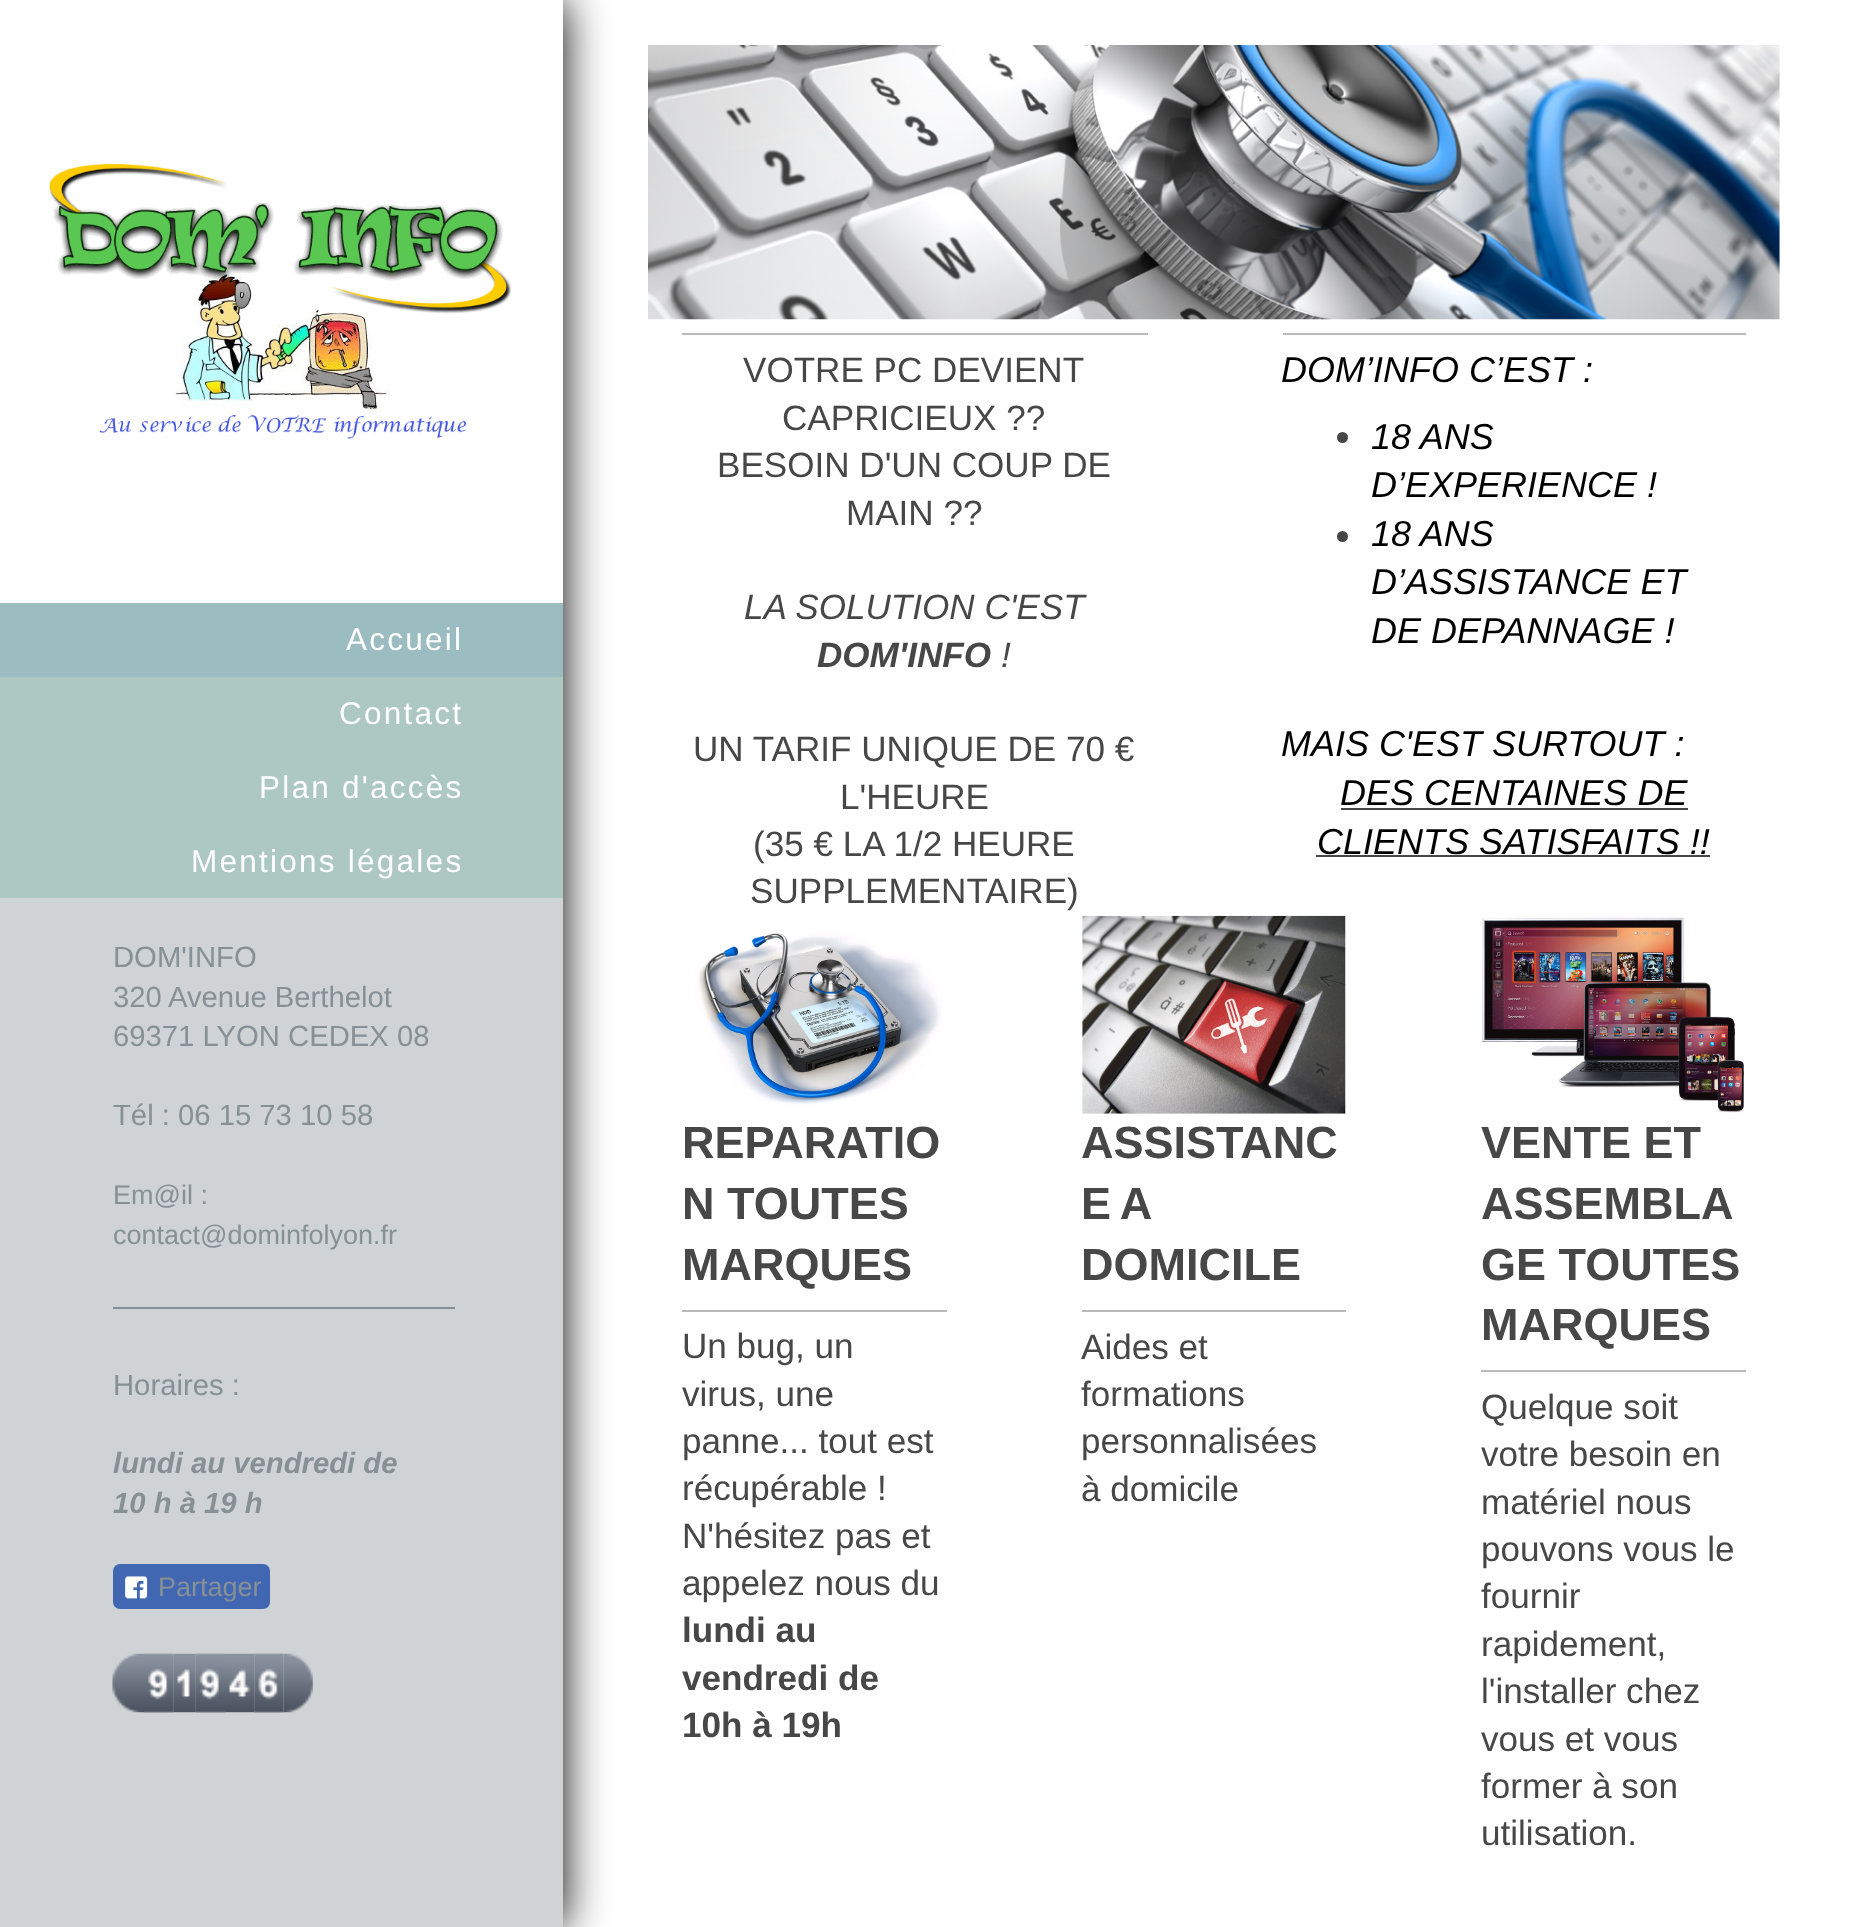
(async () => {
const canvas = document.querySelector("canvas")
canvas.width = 1865
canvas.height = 1927
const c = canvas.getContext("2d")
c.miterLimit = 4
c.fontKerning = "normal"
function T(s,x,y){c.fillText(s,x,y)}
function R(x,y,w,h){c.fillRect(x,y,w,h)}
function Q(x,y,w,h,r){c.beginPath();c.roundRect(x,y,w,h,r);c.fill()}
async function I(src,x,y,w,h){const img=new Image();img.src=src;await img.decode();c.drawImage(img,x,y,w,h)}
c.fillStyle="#fff"
R(0,0,1865,1927)
c.fillStyle="#000"
c.filter="blur(22.5px)"
c.beginPath()
c.rect(0,0,563,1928)
c.fill()
c.filter="none"
c.fillStyle="#cfd3d5"
R(0,898,563,1029)
await I("1.png",648,45,1132,275)
c.fillStyle="#bababa"
R(682,333,466,2)
c.font="35.1px Arimo"
c.fillStyle="#474747"
T("VOTRE PC DEVIENT",743,382)
T("CAPRICIEUX ??",782,430)
T("BESOIN D'UN COUP DE",717,477)
T("MAIN ??",846,525)
c.font="italic 35.1px Arimo"
T("LA SOLUTION C'EST",744,619)
c.font="italic bold 35.1px Arimo"
T("DOM'INFO",817,667)
c.font="italic 35.1px Arimo"
T("!",1001,667)
c.font="35.1px Arimo"
T("UN TARIF UNIQUE DE 70 €",693,761)
T("L'HEURE",840,809)
T("(35 € LA 1/2 HEURE",753,856)
T("SUPPLEMENTAIRE)",750,903)
c.fillStyle="#bababa"
R(1283,333,463,2)
c.font="italic 36px Arimo"
c.fillStyle="#000"
T("DOM’INFO C’EST :",1281,382)
c.fillStyle="#474747"
c.beginPath()
c.arc(1342.5,437.5,5.5,0,7)
c.fill()
c.fillStyle="#000"
T("18 ANS",1371,449)
T("D’EXPERIENCE !",1371,497)
c.fillStyle="#474747"
c.beginPath()
c.arc(1342.5,536.5,5.5,0,7)
c.fill()
c.fillStyle="#000"
T("18 ANS",1371,546)
T("D’ASSISTANCE ET",1371,594)
T("DE DEPANNAGE !",1371,643)
T("MAIS C'EST SURTOUT :",1281,756)
T("DES CENTAINES DE",1340,805)
c.fillStyle="#474747"
R(1341,808,347,2)
c.fillStyle="#000"
T("CLIENTS SATISFAITS !!",1317,854)
c.fillStyle="#474747"
R(1316,855,394,2)
await I("2.png",697,932,245,173)
c.font="bold 45px Liberation Sans"
T("REPARATIO",682,1158)
T("N TOUTES",682,1219)
T("MARQUES",682,1280)
c.fillStyle="#bababa"
R(682,1310,265,2)
c.font="35.1px Arimo"
c.fillStyle="#474747"
T("Un bug, un",682,1358)
T("virus, une",682,1406)
T("panne... tout est",682,1453)
T("récupérable !",682,1500)
T("N'hésitez pas et",682,1548)
T("appelez nous du",682,1595)
c.font="bold 35.1px Arimo"
T("lundi au",682,1642)
T("vendredi de",682,1690)
T("10h à 19h",682,1737)
await I("3.png",1082,915,264,199)
c.font="bold 45px Liberation Sans"
T("ASSISTANC",1081,1158)
c.wordSpacing="-2px"
T("E A",1081,1219)
c.wordSpacing="0px"
T("DOMICILE",1081,1280)
c.fillStyle="#bababa"
R(1082,1310,264,2)
c.font="35.1px Arimo"
c.fillStyle="#474747"
T("Aides et",1081,1359)
T("formations",1081,1406)
T("personnalisées",1081,1453)
T("à domicile",1081,1501)
await I("4.png",1482,917,262,196)
c.font="bold 45px Liberation Sans"
T("VENTE ET",1481,1158)
T("ASSEMBLA",1481,1219)
T("GE TOUTES",1481,1280)
T("MARQUES",1481,1340)
c.fillStyle="#bababa"
R(1481,1370,265,2)
c.font="35.1px Arimo"
c.fillStyle="#474747"
T("Quelque soit",1481,1419)
T("votre besoin en",1481,1466)
T("matériel nous",1481,1514)
T("pouvons vous le",1481,1561)
T("fournir",1481,1608)
T("rapidement,",1481,1656)
T("l'installer chez",1481,1703)
T("vous et vous",1481,1751)
T("former à son",1481,1798)
T("utilisation.",1481,1845)
c.fillStyle="#fff"
R(0,0,563,603)
await I("5.png",49,164,462,275)
c.fillStyle="#adc8c3"
R(0,677,563,221)
c.fillStyle="#9bbdc2"
R(0,603,563,74)
c.letterSpacing="2.25px"
c.font="31.5px Liberation Sans"
c.fillStyle="#fff"
T("Accueil",346,650)
T("Contact",339,724)
T("Plan d'accès",259,798)
T("Mentions légales",191,872)
c.letterSpacing="0px"
c.font="29.25px Liberation Sans"
c.fillStyle="#869095"
T("DOM'INFO",113,967)
T("320",113,1007)
T("Avenue Berthelot",168,1007)
T("69371 LYON CEDEX 08",113,1046)
T("Tél : 06 15 73 10 58",113,1125)
c.font="27px Liberation Sans"
T("Em@il :",113,1204)
T("contact@dominfolyon.fr",113,1244)
R(113,1307,342,2)
c.font="29.25px Liberation Sans"
T("Horaires :",113,1395)
c.font="italic bold 29.25px Liberation Sans"
T("lundi au vendredi de",113,1473)
T("10 h à 19 h",113,1513)
c.fillStyle="#4267b2"
Q(113,1564,157,45,7)
await I("6.png",125,1576,23,23)
c.font="27px Liberation Sans"
c.fillStyle="#869095"
T("Partager",158,1596)
await I("7.png",112,1653,32,60)
await I("8.png",144,1653,30,60)
await I("9.png",173,1653,23,60)
await I("10.png",195,1653,30,60)
await I("11.png",225,1653,30,60)
await I("12.png",254,1653,30,60)
await I("13.png",283,1653,30,60)
})()
